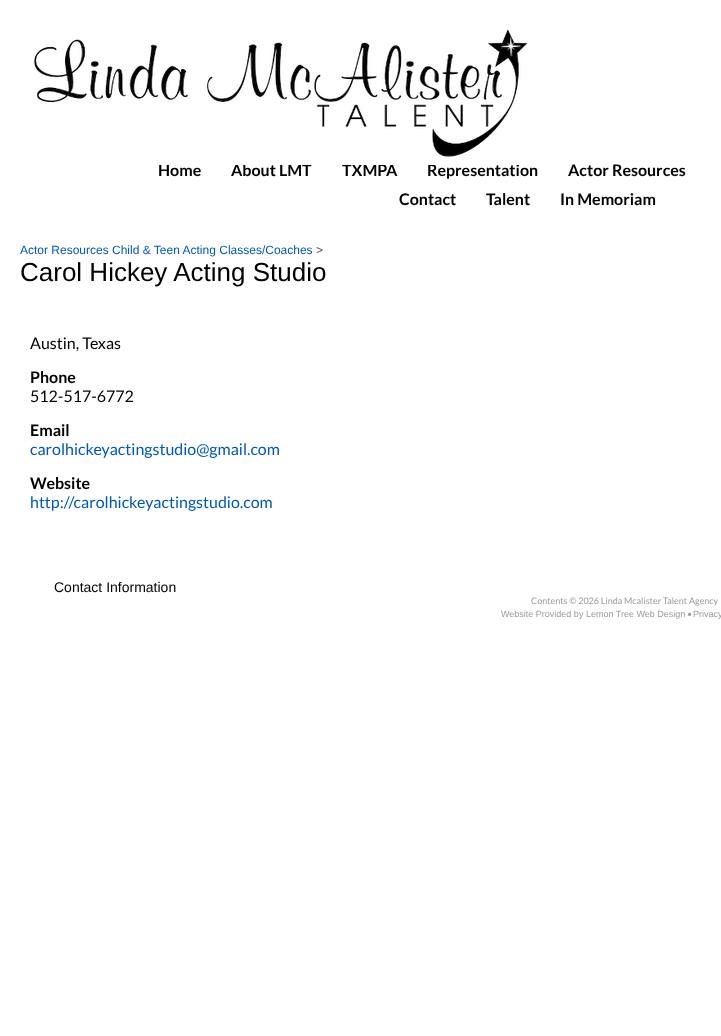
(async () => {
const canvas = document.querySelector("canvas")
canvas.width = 721
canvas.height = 1036
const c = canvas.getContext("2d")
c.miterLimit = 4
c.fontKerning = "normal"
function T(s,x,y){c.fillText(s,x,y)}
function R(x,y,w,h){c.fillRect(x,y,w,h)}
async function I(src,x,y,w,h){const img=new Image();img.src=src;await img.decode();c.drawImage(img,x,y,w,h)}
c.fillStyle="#fff"
R(0,0,721,1036)
c.font="bold 16px Lato"
c.fillStyle="#000"
T("Home",158,176)
T("About LMT",231,176)
T("TXMPA",342,176)
T("Representation",427,176)
await I("1.png",34,29,494,136)
T("Actor Resources",568,176)
T("Contact",399,205)
T("Talent",486,205)
T("In Memoriam",560,205)
c.font="12px Liberation Sans"
c.fillStyle="#0058b6"
T("Actor Resources Child & Teen Acting Classes/Coaches",20,254)
c.fillStyle="#494949"
T(">",316,254)
c.font="26px Liberation Sans"
c.fillStyle="#000"
T("Carol Hickey Acting Studio",20,281)
c.font="16px Lato"
T("Austin, Texas",30,349)
c.font="bold 16px Lato"
T("Phone",30,383)
c.font="16px Lato"
T("512-517-6772",30,402)
c.font="bold 16px Lato"
T("Email",30,436)
c.font="16px Lato"
c.fillStyle="#0058b6"
T("carolhickeyactingstudio@gmail.com",30,455)
c.font="bold 16px Lato"
c.fillStyle="#000"
T("Website",30,489)
c.font="16px Lato"
c.fillStyle="#0058b6"
T("http://carolhickeyactingstudio.com",30,508)
c.font="14px Liberation Sans"
c.fillStyle="#000"
T("Contact Information",54,592)
c.font="9px Lato"
c.fillStyle="#9a9a9a"
T("Contents © 2026 Linda Mcalister Talent Agency",531,604)
c.font="9px Liberation Sans"
T("Website Provided by Lemon Tree Web Design",501,617)
c.font="9px Lato"
T("•",687,617)
c.font="9px Liberation Sans"
T("Privacy",693,617)
})()
